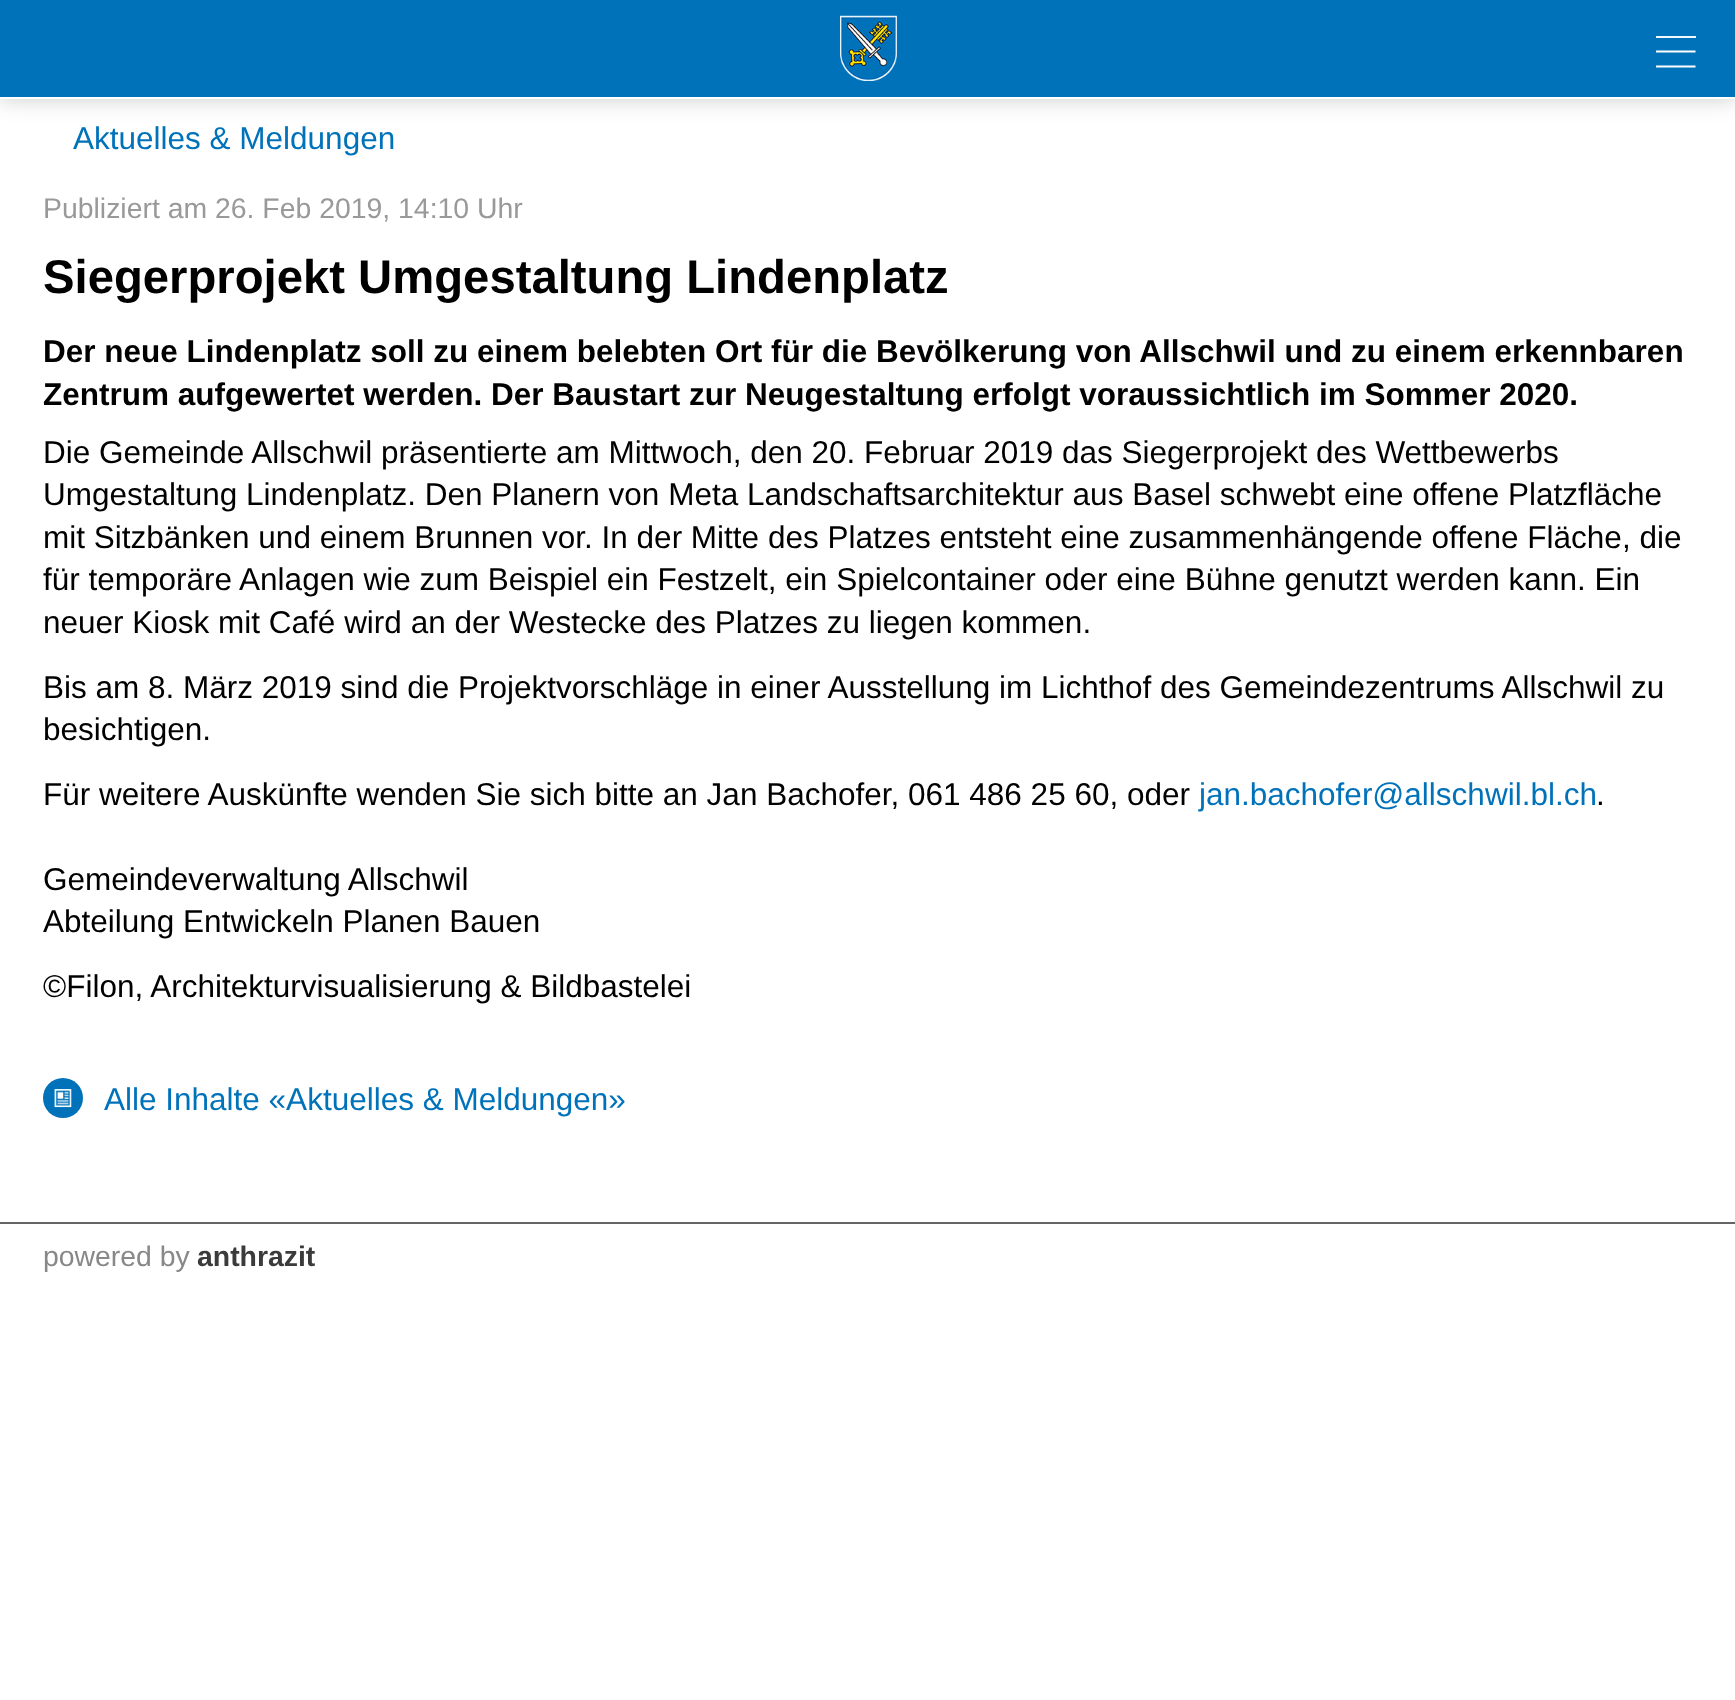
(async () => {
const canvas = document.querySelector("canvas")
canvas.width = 1735
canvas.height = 1700
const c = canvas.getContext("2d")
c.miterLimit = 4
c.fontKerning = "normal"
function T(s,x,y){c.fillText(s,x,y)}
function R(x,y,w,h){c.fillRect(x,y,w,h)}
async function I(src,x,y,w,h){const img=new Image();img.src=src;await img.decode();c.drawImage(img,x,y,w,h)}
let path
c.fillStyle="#fff"
R(0,0,1735,1700)
c.fillStyle="#00000033"
c.filter="blur(11px)"
c.beginPath()
c.rect(0,0,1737,99)
c.fill()
c.filter="none"
c.fillStyle="#0072ba"
R(0,0,1735,97)
c.fillStyle="#fff"
R(0,97,1735,2)
await I("1.png",840,15,57,66)
c.fillStyle="#f2f8fc"
R(1656,36,40,2)
path = new Path2D("M1656 51.5h39.5m-39.5 15h39.5")
c.strokeStyle="#fff"
c.lineWidth=1.9
c.lineJoin="round"
c.stroke(path)
c.font="31.5px Liberation Sans"
c.fillStyle="#0072ba"
T("Aktuelles & Meldungen",73,149)
c.font="28.4px Liberation Sans"
c.fillStyle="#999"
T("Publiziert am 26. Feb 2019, 14:10 Uhr",43,218)
c.font="bold 47.25px Liberation Sans"
c.fillStyle="#000"
T("Siegerprojekt Umgestaltung Lindenplatz",43,293)
c.font="bold 31.5px Liberation Sans"
T("Der neue Lindenplatz soll zu einem belebten Ort für die Bevölkerung von Allschwil und zu einem erkennbaren",43,362)
T("Zentrum aufgewertet werden. Der Baustart zur Neugestaltung erfolgt voraussichtlich im Sommer 2020.",43,405)
c.font="31.5px Liberation Sans"
T("Die Gemeinde Allschwil präsentierte am Mittwoch, den 20. Februar 2019 das Siegerprojekt des Wettbewerbs",43,463)
T("Umgestaltung Lindenplatz. Den Planern von Meta Landschaftsarchitektur aus Basel schwebt eine offene Platzfläche",43,505)
T("mit Sitzbänken und einem Brunnen vor. In der Mitte des Platzes entsteht eine zusammenhängende offene Fläche, die",43,548)
T("für temporäre Anlagen wie zum Beispiel ein Festzelt, ein Spielcontainer oder eine Bühne genutzt werden kann. Ein",43,590)
T("neuer Kiosk mit Café wird an der Westecke des Platzes zu liegen kommen.",43,633)
T("Bis am 8. März 2019 sind die Projektvorschläge in einer Ausstellung im Lichthof des Gemeindezentrums Allschwil zu",43,698)
T("besichtigen.",43,740)
T("Für weitere Auskünfte wenden Sie sich bitte an Jan Bachofer, 061 486 25 60, oder",43,805)
c.fillStyle="#0072ba"
T("jan.bachofer@allschwil.bl.ch",1199,805)
c.fillStyle="#000"
T(".",1596,805)
T("Gemeindeverwaltung Allschwil",43,890)
T("Abteilung Entwickeln Planen Bauen",43,932)
T("©Filon, Architekturvisualisierung & Bildbastelei",43,997)
c.fillStyle="#0072ba"
c.beginPath()
c.arc(63,1098,20,0,7)
c.fill()
await I("2.png",54,1089,18,19)
T("Alle Inhalte «Aktuelles & Meldungen»",104,1110)
c.fillStyle="#646464"
R(0,1222,1735,2)
c.font="28.4px Liberation Sans"
c.fillStyle="#888"
T("powered by",43,1266)
c.font="bold 28.4px Liberation Sans"
c.fillStyle="#3b3b3b"
T("anthrazit",197,1266)
})()
